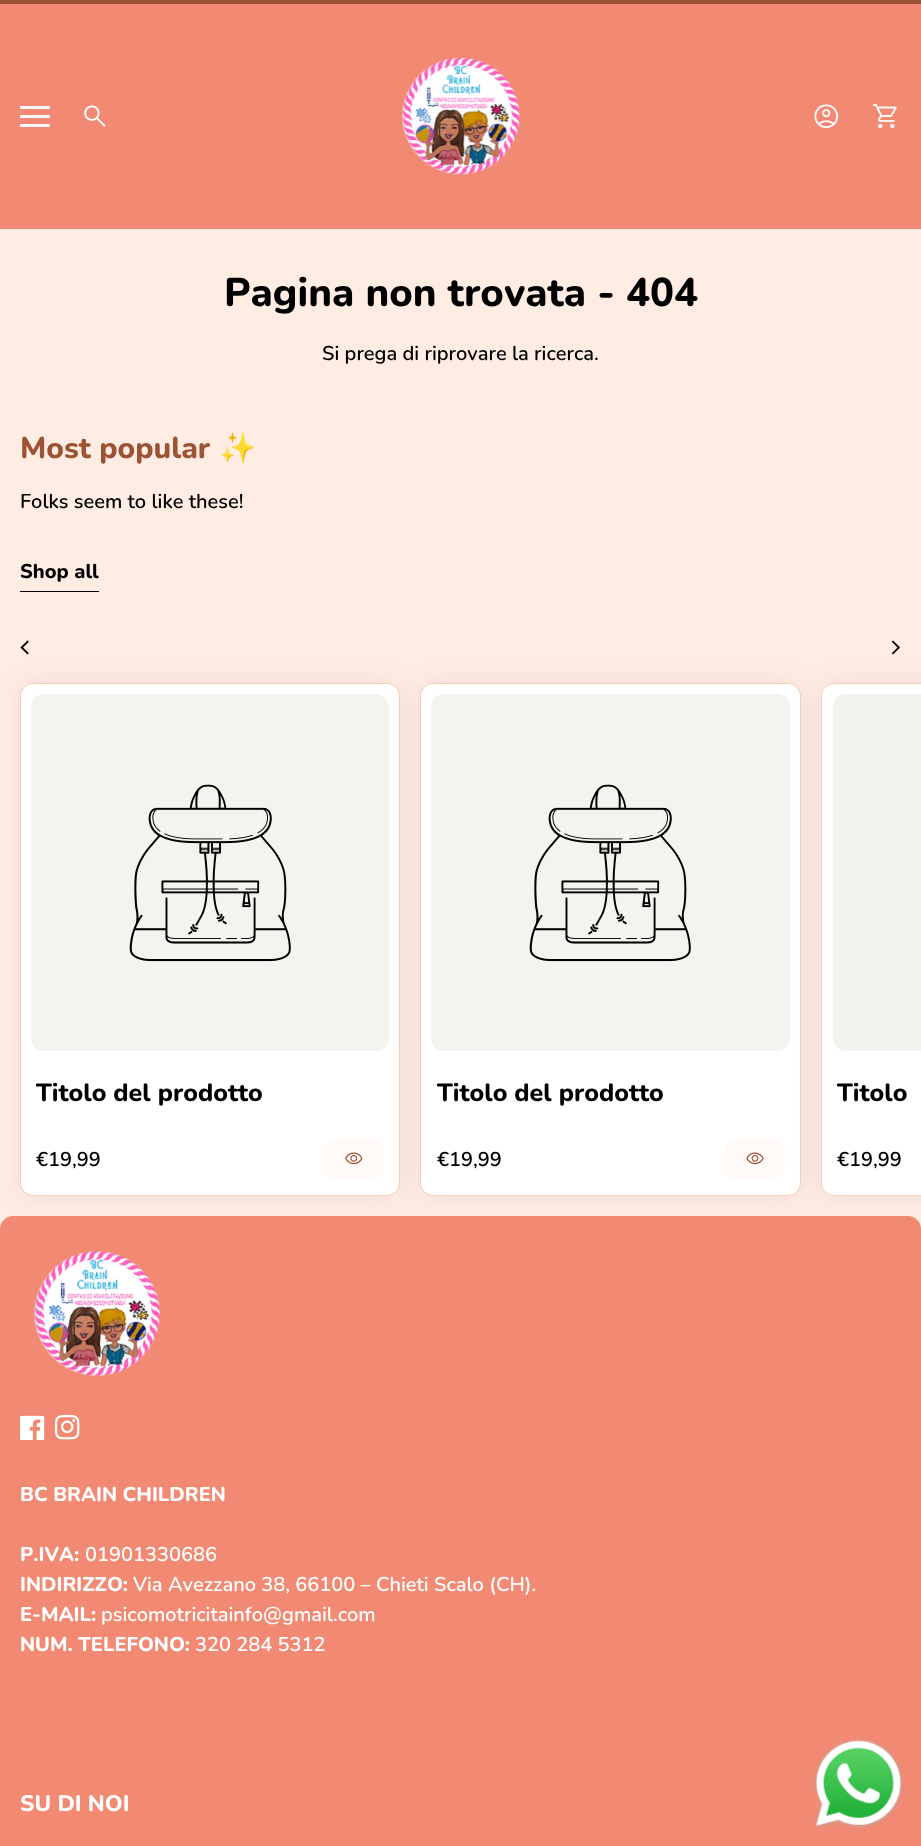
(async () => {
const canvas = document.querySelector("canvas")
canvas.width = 921
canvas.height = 1846
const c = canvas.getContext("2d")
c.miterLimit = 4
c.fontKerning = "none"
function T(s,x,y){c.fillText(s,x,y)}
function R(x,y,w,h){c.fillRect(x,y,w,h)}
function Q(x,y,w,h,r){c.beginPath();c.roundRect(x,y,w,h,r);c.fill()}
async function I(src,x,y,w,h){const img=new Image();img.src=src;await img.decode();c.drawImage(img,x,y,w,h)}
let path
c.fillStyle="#ffece3"
R(0,0,921,1846)
c.fillStyle="#9c5333"
R(0,0,921,4)
c.fillStyle="#f28972"
R(0,4,921,225)
c.fillStyle="#fffaf9"
R(20,106,30,3)
R(20,115,30,3)
R(20,124,30,3)
await I("1.png",84,105,22,22)
await I("2.png",401,57,119,118)
await I("3.png",814,104,25,25)
await I("4.png",873,104,24,25)
c.font="800 40px Nunito"
c.fillStyle="#000"
T("Pagina non trovata - 404",224,306)
c.font="600 20px Nunito"
T("Si prega di riprovare la ricerca.",322,360)
c.font="800 30px Nunito"
c.fillStyle="#9c5333"
T("Most popular",20,458)
c.font="bold 30px Noto Color Emoji"
T("✨",219,458)
c.font="600 20px Nunito"
c.fillStyle="#000"
T("Folks seem to like these!",20,508)
R(20,591,79,1)
c.font="800 20px Nunito"
T("Shop all",20,578)
await I("5.png",20,640,9,15)
await I("6.png",891,640,9,15)
c.fillStyle="#f28972"
path = new Path2D("M13 1216h895c7 0 13 6 13 13v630h-921v-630c0-7 6-13 13-13z")
c.fill(path)
c.fillStyle="#34405414"
c.filter="blur(15px)"
c.beginPath()
c.roundRect(20,683,380,513,13)
c.fill()
c.filter="none"
c.fillStyle="#fff"
c.beginPath()
c.roundRect(20.5,683.5,379,512,12.5)
c.fill()
c.strokeStyle="#f3d0b3"
c.stroke()
c.fillStyle="#f4f3ee"
Q(31,694,358,357,13)
await I("7.png",129,784,162,178)
c.font="800 25px Nunito"
c.fillStyle="#000"
T("Titolo del prodotto",36,1101)
c.font="600 20px Nunito"
T("€19,99",36,1166)
c.fillStyle="#fffaf7"
Q(324,1138,60,42,13)
await I("8.png",345,1152,18,13)
c.fillStyle="#34405414"
c.filter="blur(15px)"
c.beginPath()
c.roundRect(420,683,381,513,13)
c.fill()
c.filter="none"
c.fillStyle="#fff"
c.beginPath()
c.roundRect(420.5,683.5,380,512,12.5)
c.fill()
c.stroke()
c.fillStyle="#f4f3ee"
Q(431,694,359,357,13)
await I("7.png",529,784,162,178)
c.font="800 25px Nunito"
c.fillStyle="#000"
T("Titolo del prodotto",437,1101)
c.font="600 20px Nunito"
T("€19,99",437,1166)
c.fillStyle="#fffaf7"
Q(725,1138,60,42,13)
await I("9.png",746,1152,18,13)
c.fillStyle="#34405414"
c.filter="blur(15px)"
c.beginPath()
c.roundRect(821,683,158,513,13)
c.fill()
c.filter="none"
c.fillStyle="#fff"
c.beginPath()
c.roundRect(821,683,100,513,[13,0,0,13])
c.fill()
c.beginPath()
c.roundRect(821.5,683.5,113,512,12.5)
c.stroke()
c.fillStyle="#f3f3ee"
c.beginPath()
c.roundRect(833,694,88,357,[13,0,0,13])
c.fill()
c.font="800 25px Nunito"
c.fillStyle="#000"
T("Titolo",837,1101)
c.font="600 20px Nunito"
T("€19,99",837,1166)
await I("10.png",34,1251,127,126)
await I("11.png",20,1415,25,25)
await I("12.png",55,1415,25,25)
c.font="800 20px Nunito"
c.fillStyle="#fff"
T("BC BRAIN CHILDREN",20,1501)
T("P.IVA:",20,1561)
c.font="600 20px Nunito"
T("01901330686",85,1561)
c.font="800 20px Nunito"
T("INDIRIZZO:",20,1591)
c.font="600 20px Nunito"
T("Via Avezzano 38, 66100 – Chieti Scalo (CH).",133,1591)
c.font="800 20px Nunito"
T("E-MAIL:",20,1621)
c.font="600 20px Nunito"
T("psicomotricitainfo@gmail.com",101,1621)
c.font="800 20px Nunito"
T("NUM. TELEFONO:",20,1651)
c.font="600 20px Nunito"
T("320 284 5312",195,1651)
c.font="800 22.5px Nunito"
T("SU DI NOI",20,1811)
await I("13.png",813,1738,91,91)
})()
